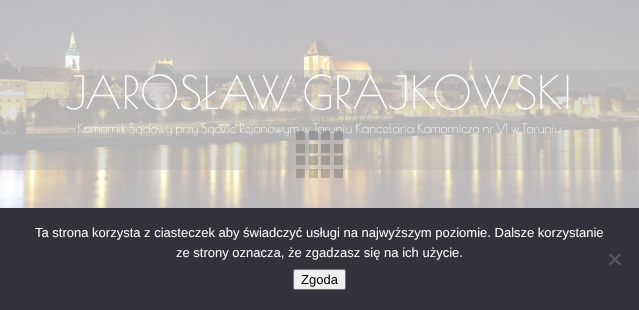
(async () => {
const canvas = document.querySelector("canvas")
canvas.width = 639
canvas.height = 310
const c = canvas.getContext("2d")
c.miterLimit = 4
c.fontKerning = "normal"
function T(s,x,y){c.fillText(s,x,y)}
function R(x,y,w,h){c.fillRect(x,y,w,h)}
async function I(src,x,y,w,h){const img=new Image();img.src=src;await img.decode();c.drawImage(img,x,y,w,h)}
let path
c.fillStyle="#fff"
R(0,0,639,310)
await I("1.png",0,0,639,208)
c.fillStyle="#b3b3b366"
R(0,70,639,100)
c.font="45px Poiret One"
c.fillStyle="#fff"
T("JAROSŁAW GRAJKOWSKI",66,109)
c.font="13px Poiret One"
T("Komornik Sądowy przy Sądzie Rejonowym w Toruniu Kancelaria Komornicza nr VI w Toruniu",77,133)
c.fillStyle="#3333333d"
R(296,131,9,9)
R(309,131,9,9)
R(321,131,9,9)
R(334,131,9,9)
R(296,144,9,9)
R(309,144,9,9)
R(321,144,9,9)
R(334,144,9,9)
R(296,156,9,9)
R(309,156,9,9)
R(321,156,9,9)
R(334,156,9,9)
R(296,169,9,9)
R(309,169,9,9)
R(321,169,9,9)
R(334,169,9,9)
c.fillStyle="#32323a"
R(0,208,639,102)
c.font="13px Liberation Sans"
c.fillStyle="#fff"
T("Ta strona korzysta z ciasteczek aby świadczyć usługi na najwyższym poziomie. Dalsze korzystanie",35,237)
T("ze strony oznacza, że zgadzasz się na ich użycie.",176,257)
c.fillStyle="#59595d"
path = new Path2D("M619.5 253.5l1.5 1.5l-10.5 10.5l-1.5-1.5z")
c.fill(path)
path = new Path2D("M609 255l1.5-1.5l10.5 10.5l-1.5 1.5z")
c.fill(path)
c.fillStyle="#efefef"
c.beginPath()
c.roundRect(293.5,269.5,52,20,1.5)
c.fill()
c.strokeStyle="#767676"
c.stroke()
c.fillStyle="#000"
T("Zgoda",301,284)
})()
